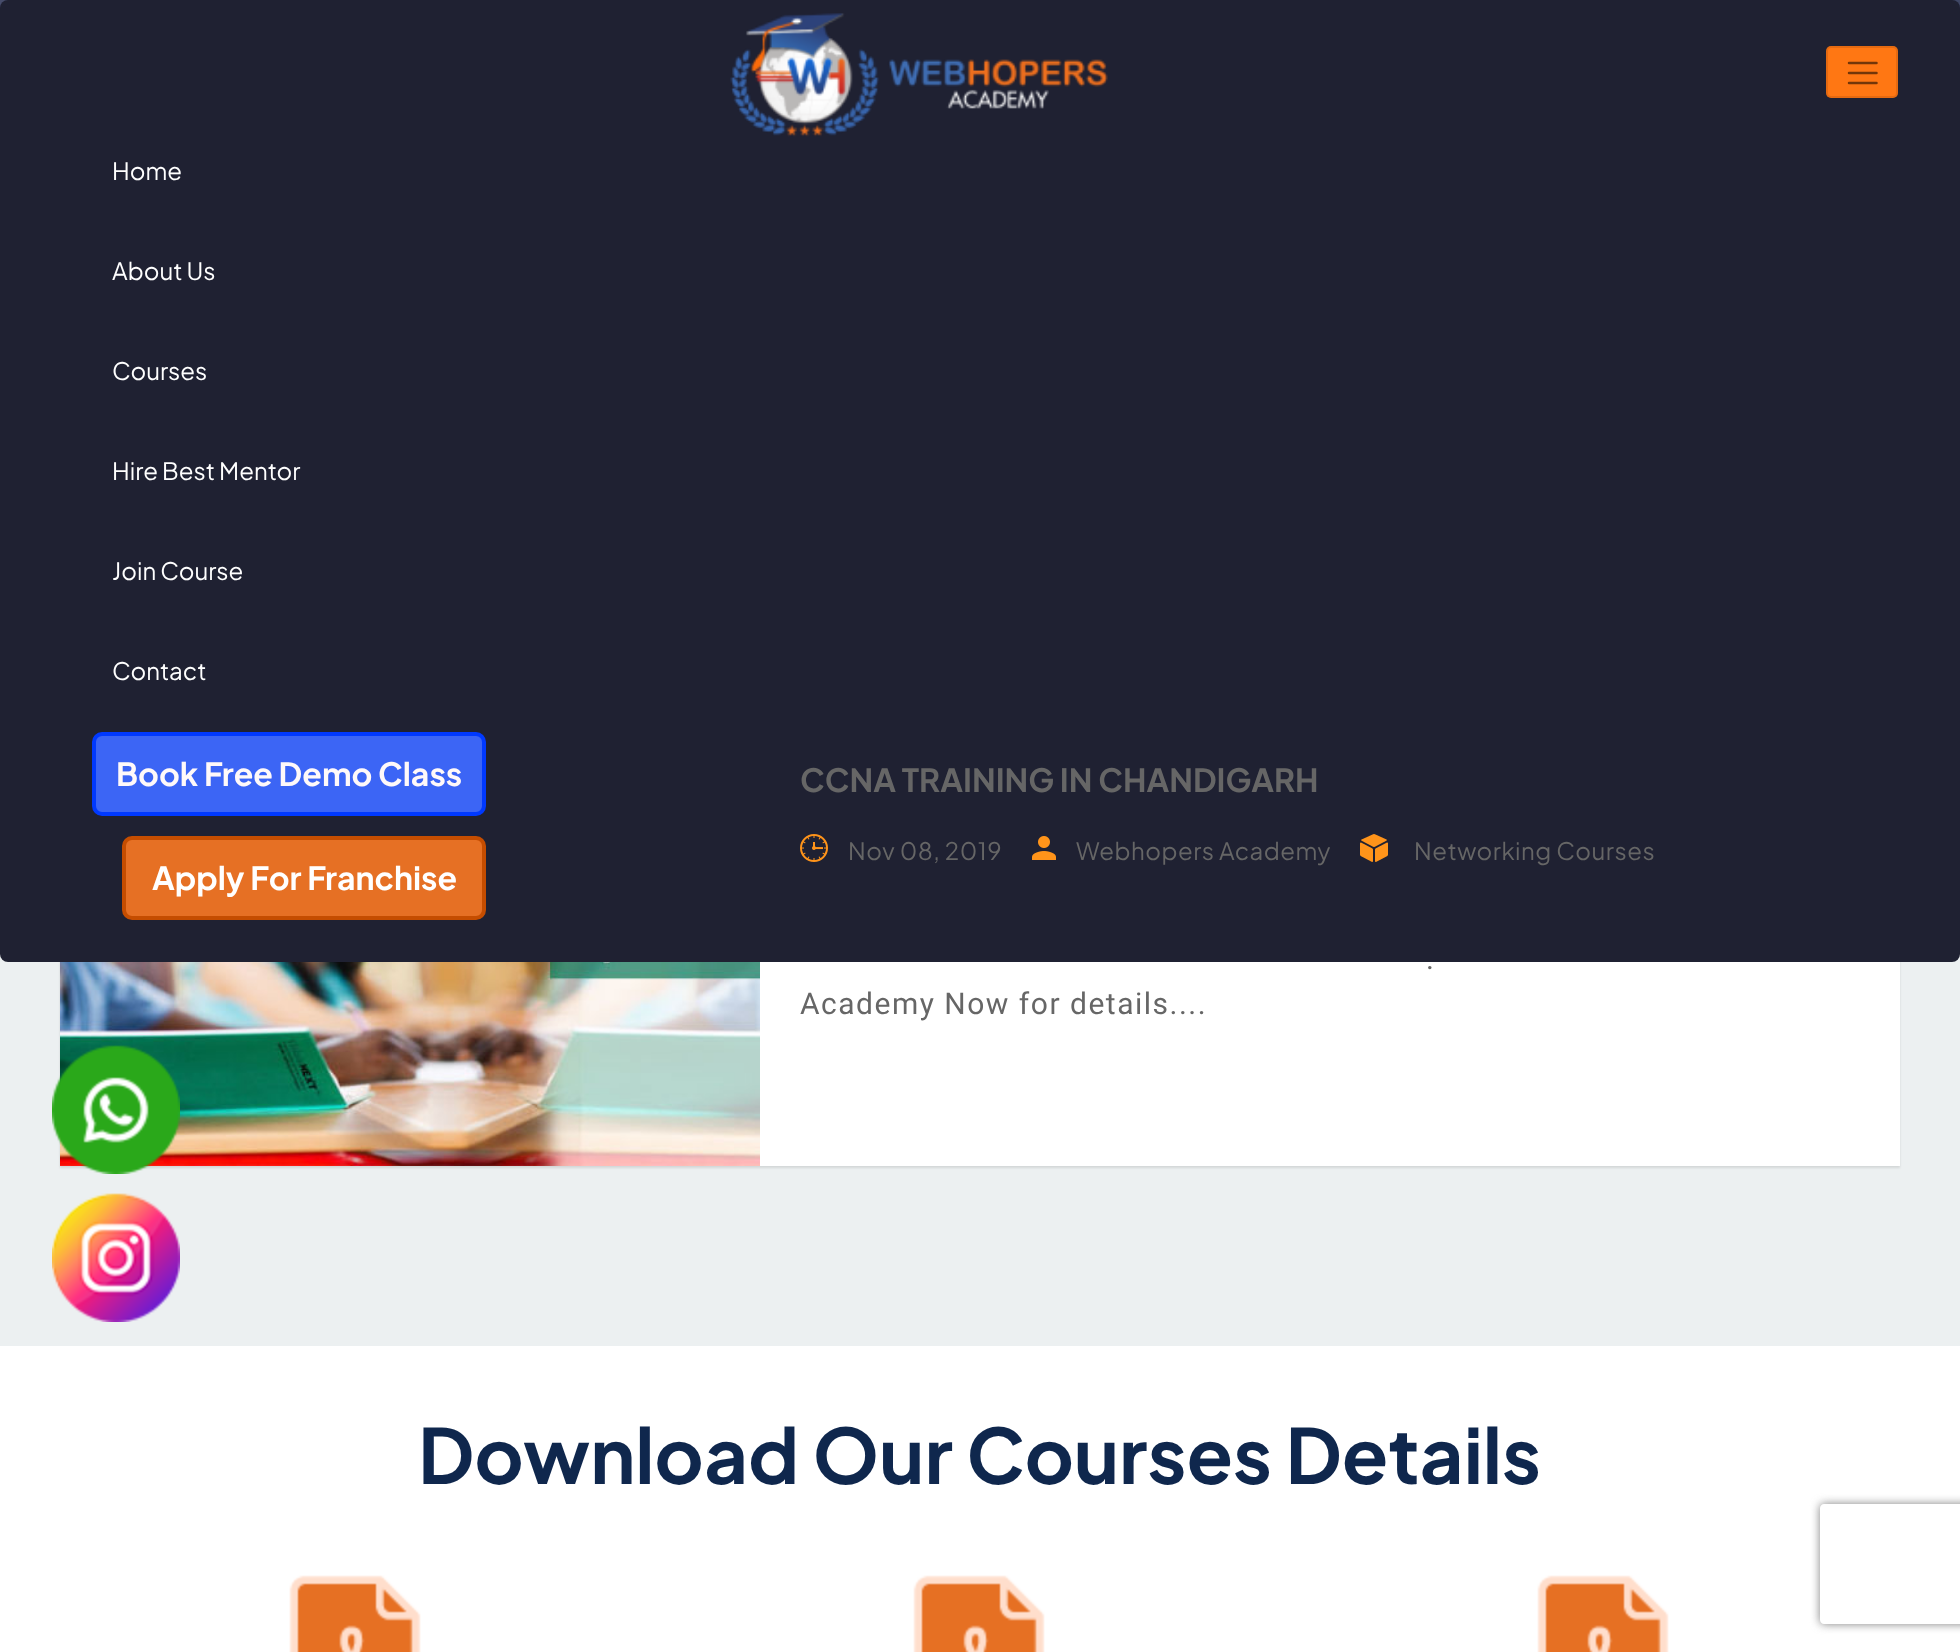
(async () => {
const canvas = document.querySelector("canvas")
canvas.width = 1960
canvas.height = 1652
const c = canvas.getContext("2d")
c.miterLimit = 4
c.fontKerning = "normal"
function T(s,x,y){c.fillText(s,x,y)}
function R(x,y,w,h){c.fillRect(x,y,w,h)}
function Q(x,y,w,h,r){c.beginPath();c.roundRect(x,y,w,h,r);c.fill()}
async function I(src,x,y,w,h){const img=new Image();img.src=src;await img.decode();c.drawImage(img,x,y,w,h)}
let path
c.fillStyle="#fff"
R(0,0,1960,1652)
await I("1.png",0,0,1960,8)
c.fillStyle="#ecf0f1"
R(0,954,1960,392)
c.fillStyle="#0000001a"
c.filter="blur(1px)"
c.beginPath()
c.rect(60,702,1840,466)
c.fill()
c.filter="none"
c.fillStyle="#1f2132"
Q(0,0,1960,962,8)
await I("2.png",730,13,378,124)
c.fillStyle="#ff7713"
Q(1826,46,72,52,5)
c.beginPath()
c.roundRect(1827,47,70,50,4)
c.strokeStyle="#0000001a"
c.lineWidth=2
c.stroke()
path = new Path2D("M1849 63h27.5m-27.5 10h27.5m-27.5 10h27.5")
c.strokeStyle="#733609"
c.lineWidth=2.5
c.lineCap="round"
c.stroke(path)
c.font="24px Plus Jakarta Sans"
c.fillStyle="#fff"
T("Home",112,180)
T("About Us",112,280)
T("Courses",112,380)
T("Hire Best Mentor",112,480)
T("Join Course",112,580)
T("Contact",112,680)
c.fillStyle="#3c65f5"
c.beginPath()
c.roundRect(94,734,390,80,8)
c.fill()
c.strokeStyle="#0039ff"
c.lineWidth=4
c.stroke()
c.font="bold 32px Plus Jakarta Sans"
c.fillStyle="#fff9f9"
T("Book Free Demo Class",116,786)
c.fillStyle="#e67024"
c.beginPath()
c.roundRect(124,838,360,80,8)
c.fill()
c.strokeStyle="#c54d00"
c.stroke()
c.fillStyle="#fff"
T("Apply For Franchise",152,890)
c.fillStyle="#666"
T("CCNA TRAINING IN CHANDIGARH",800,792)
await I("3.png",800,834,28,28)
c.letterSpacing="0.5px"
c.font="24px Plus Jakarta Sans"
T("Nov 08, 2019",848,860)
await I("4.png",1032,836,24,24)
T("Webhopers Academy",1076,860)
await I("5.png",1360,834,28,28)
T("Networking Courses",1414,860)
c.fillStyle="#fff"
R(760,962,1140,204)
c.letterSpacing="1.5px"
c.font="30px Roboto"
c.fillStyle="#666"
T(".",1426,969)
T("Academy Now for details....",800,1014)
await I("6.png",60,962,700,204)
await I("7.png",52,1045,128,129)
await I("8.png",52,1193,128,129)
c.letterSpacing="0px"
c.font="bold 76px Plus Jakarta Sans"
c.fillStyle="#0f274d"
T("Download Our Courses Details",418,1484)
await I("9.png",289,1575,132,77)
await I("9.png",913,1575,132,77)
await I("9.png",1537,1575,132,77)
c.save()
path = new Path2D("M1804 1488h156v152h-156zm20 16h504c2 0 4 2 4 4v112c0 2-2 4-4 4h-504c-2 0-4-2-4-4v-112c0-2 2-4 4-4z")
c.clip(path,"evenodd")
c.fillStyle="#808080"
c.filter="blur(5px)"
c.beginPath()
c.roundRect(1820,1504,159,120,4)
c.fill()
c.filter="none"
c.restore()
})()
